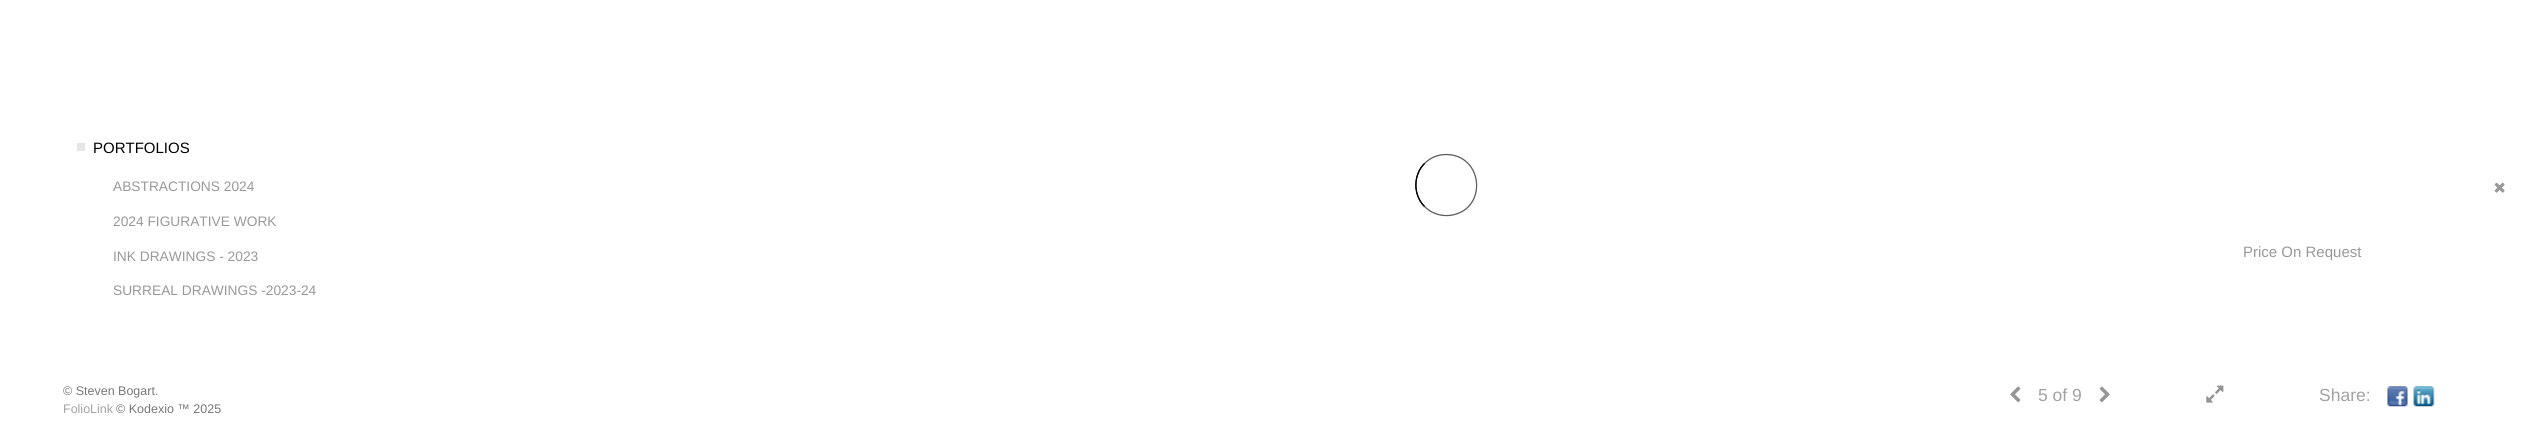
#include <cairo/cairo.h>
#include <math.h>
#include <stddef.h>

typedef struct { double x, y; const char *s; } line_t;
static cairo_t *cr;

static void rgb(unsigned color)
{
	cairo_set_source_rgb(cr, (color >> 16) / 255.0, (color >> 8 & 255) / 255.0, (color & 255) / 255.0);
}

static void image(const char *path, double x, double y, double w, double h)
{
	cairo_surface_t *image = cairo_image_surface_create_from_png(path);
	cairo_save(cr);
	cairo_set_source_surface(cr, image, x, y);
	cairo_rectangle(cr, x, y, w, h);
	cairo_fill(cr);
	cairo_restore(cr);
	cairo_surface_destroy(image);
}

int main(void) {
	cairo_surface_t *surface = cairo_image_surface_create(CAIRO_FORMAT_RGB24, 2542, 432);
	cr = cairo_create(surface);
	cairo_font_options_t *options = cairo_font_options_create();
	cairo_font_options_set_hint_metrics(options, CAIRO_HINT_METRICS_OFF);
	cairo_font_options_set_hint_style(options, CAIRO_HINT_STYLE_NONE);
	cairo_set_font_options(cr, options);
	cairo_set_miter_limit(cr, 4);
	rgb(0xffffff);
	cairo_paint(cr);
	rgb(0xe5e5e5);
	cairo_rectangle(cr, 77, 143, 8, 8);
	cairo_fill(cr);
	image("img/1.png", 2494, 182, 11, 11);
	cairo_new_path(cr);
	cairo_move_to(cr, 1424.5, 163.5);
	cairo_curve_to(cr, 1430.5, 157.5, 1438, 154.5, 1446, 154.5);
	cairo_curve_to(cr, 1483, 154.5, 1488, 208, 1452.5, 215);
	cairo_curve_to(cr, 1442.5, 217, 1432, 214, 1424.5, 206.5);
	rgb(0x999999);
	cairo_set_line_width(cr, 1.2);
	cairo_stroke(cr);
	cairo_new_path(cr);
	cairo_move_to(cr, 1424.5, 206.5);
	cairo_curve_to(cr, 1413, 195, 1413, 175, 1424.5, 163.5);
	rgb(0x000000);
	cairo_stroke(cr);
	cairo_new_path(cr);
	cairo_move_to(cr, 1424.5, 163.5);
	cairo_curve_to(cr, 1430.5, 157.5, 1438, 154.5, 1446, 154.5);
	cairo_curve_to(cr, 1483, 154.5, 1488, 208, 1452.5, 215);
	cairo_curve_to(cr, 1442.5, 217, 1432, 214, 1424.5, 206.5);
	cairo_set_source_rgba(cr, 0, 0, 0, 0.4);
	cairo_stroke(cr);
	cairo_new_path(cr);
	cairo_move_to(cr, 1424.5, 206.5);
	cairo_curve_to(cr, 1413, 195, 1413, 175, 1424.5, 163.5);
	rgb(0x000000);
	cairo_stroke(cr);
	image("img/2.png", 2010, 386, 11, 17);
	image("img/3.png", 2099, 386, 11, 17);
	image("img/4.png", 2206, 385, 18, 18);
	image("img/5.png", 2387, 386, 21, 21);
	image("img/6.png", 2413, 386, 22, 21);
	cairo_select_font_face(cr, "Liberation Sans", CAIRO_FONT_SLANT_NORMAL, CAIRO_FONT_WEIGHT_NORMAL);
	cairo_set_font_size(cr, 15);
	cairo_move_to(cr, 93, 153);
	cairo_show_text(cr, "PORTFOLIOS");
	cairo_set_font_size(cr, 13.75);
	rgb(0x989898);
	{
		static const line_t items[] = {
			{113, 191, "ABSTRACTIONS 2024"},
			{113, 226, "2024 FIGURATIVE WORK"},
			{113, 261, "INK DRAWINGS - 2023"},
		};
		for (size_t i = 0; i < sizeof items / sizeof *items; i++) {
			cairo_move_to(cr, items[i].x, items[i].y);
			cairo_show_text(cr, items[i].s);
		}
	}
	cairo_save(cr);
	cairo_rectangle(cr, 75, 63, 275, 232);
	cairo_clip(cr);
	cairo_move_to(cr, 113, 295);
	cairo_show_text(cr, "SURREAL DRAWINGS -2023-24");
	cairo_restore(cr);
	cairo_set_font_size(cr, 15);
	cairo_move_to(cr, 2243, 257);
	cairo_show_text(cr, "Price On Request");
	cairo_set_font_size(cr, 12.5);
	rgb(0x777777);
	cairo_move_to(cr, 63, 395);
	cairo_show_text(cr, "© Steven Bogart.");
	rgb(0xa2a2a2);
	cairo_move_to(cr, 63, 413);
	cairo_show_text(cr, "FolioLink");
	rgb(0x777777);
	cairo_move_to(cr, 116, 413);
	cairo_show_text(cr, "© Kodexio ™ 2025");
	cairo_set_font_size(cr, 17.5);
	rgb(0xa2a2a2);
	cairo_move_to(cr, 2038, 401);
	cairo_show_text(cr, "5 of 9");
	cairo_move_to(cr, 2319, 401);
	cairo_show_text(cr, "Share:");
	cairo_surface_write_to_png(surface, "page.png");
	cairo_font_options_destroy(options);
	cairo_destroy(cr);
	cairo_surface_destroy(surface);
	return 0;
}
